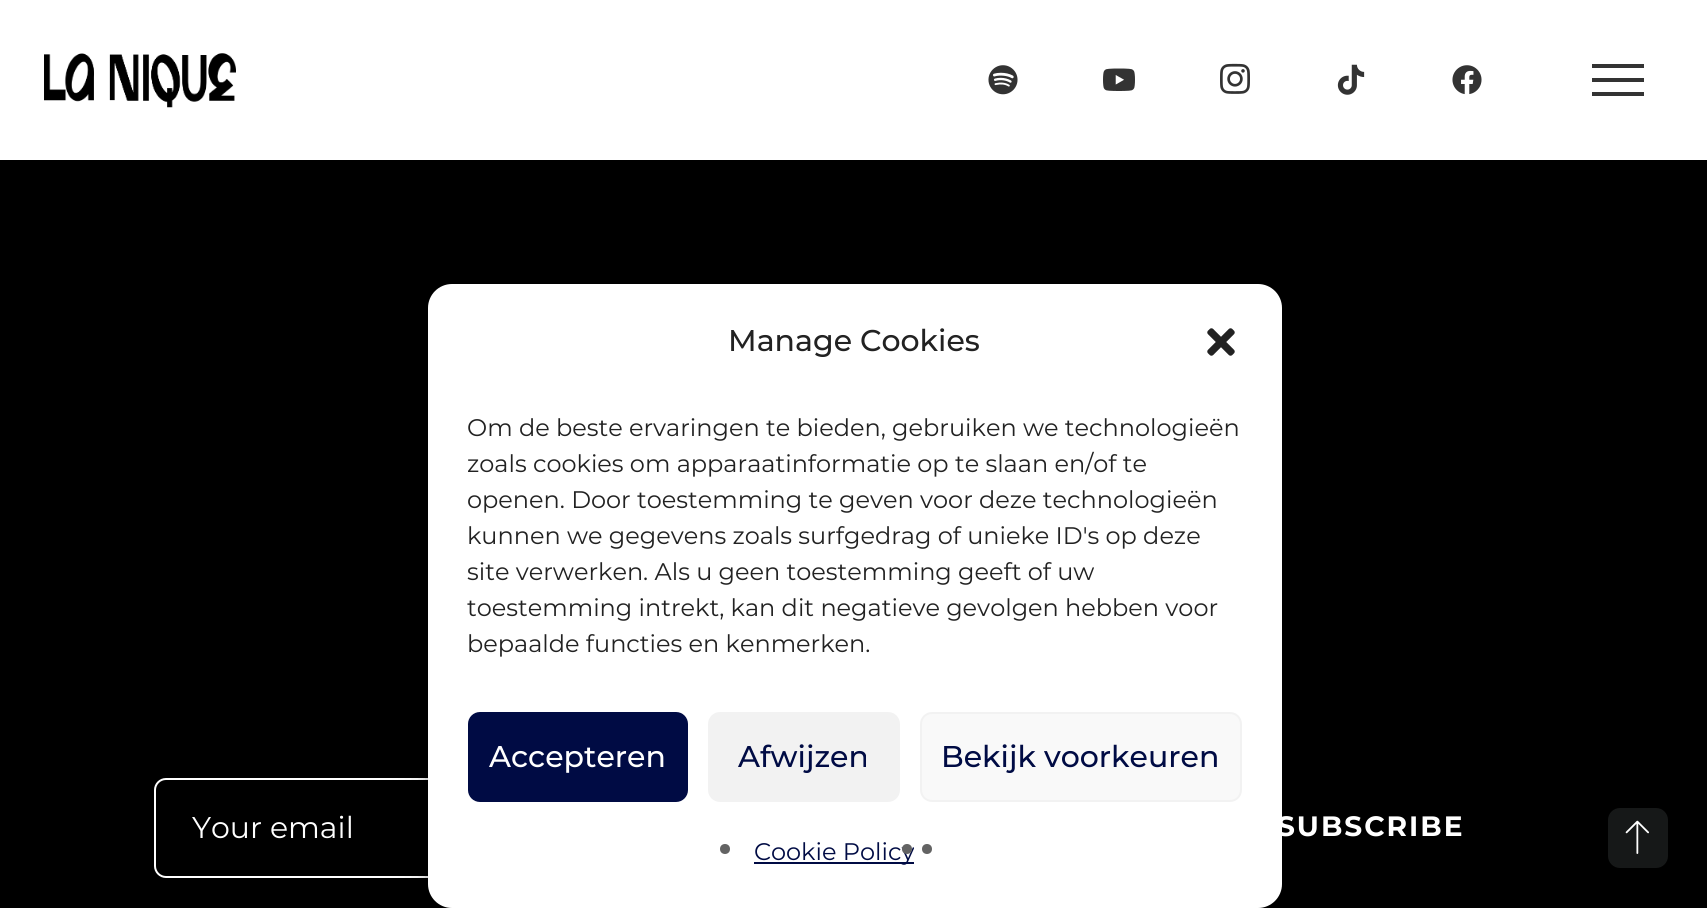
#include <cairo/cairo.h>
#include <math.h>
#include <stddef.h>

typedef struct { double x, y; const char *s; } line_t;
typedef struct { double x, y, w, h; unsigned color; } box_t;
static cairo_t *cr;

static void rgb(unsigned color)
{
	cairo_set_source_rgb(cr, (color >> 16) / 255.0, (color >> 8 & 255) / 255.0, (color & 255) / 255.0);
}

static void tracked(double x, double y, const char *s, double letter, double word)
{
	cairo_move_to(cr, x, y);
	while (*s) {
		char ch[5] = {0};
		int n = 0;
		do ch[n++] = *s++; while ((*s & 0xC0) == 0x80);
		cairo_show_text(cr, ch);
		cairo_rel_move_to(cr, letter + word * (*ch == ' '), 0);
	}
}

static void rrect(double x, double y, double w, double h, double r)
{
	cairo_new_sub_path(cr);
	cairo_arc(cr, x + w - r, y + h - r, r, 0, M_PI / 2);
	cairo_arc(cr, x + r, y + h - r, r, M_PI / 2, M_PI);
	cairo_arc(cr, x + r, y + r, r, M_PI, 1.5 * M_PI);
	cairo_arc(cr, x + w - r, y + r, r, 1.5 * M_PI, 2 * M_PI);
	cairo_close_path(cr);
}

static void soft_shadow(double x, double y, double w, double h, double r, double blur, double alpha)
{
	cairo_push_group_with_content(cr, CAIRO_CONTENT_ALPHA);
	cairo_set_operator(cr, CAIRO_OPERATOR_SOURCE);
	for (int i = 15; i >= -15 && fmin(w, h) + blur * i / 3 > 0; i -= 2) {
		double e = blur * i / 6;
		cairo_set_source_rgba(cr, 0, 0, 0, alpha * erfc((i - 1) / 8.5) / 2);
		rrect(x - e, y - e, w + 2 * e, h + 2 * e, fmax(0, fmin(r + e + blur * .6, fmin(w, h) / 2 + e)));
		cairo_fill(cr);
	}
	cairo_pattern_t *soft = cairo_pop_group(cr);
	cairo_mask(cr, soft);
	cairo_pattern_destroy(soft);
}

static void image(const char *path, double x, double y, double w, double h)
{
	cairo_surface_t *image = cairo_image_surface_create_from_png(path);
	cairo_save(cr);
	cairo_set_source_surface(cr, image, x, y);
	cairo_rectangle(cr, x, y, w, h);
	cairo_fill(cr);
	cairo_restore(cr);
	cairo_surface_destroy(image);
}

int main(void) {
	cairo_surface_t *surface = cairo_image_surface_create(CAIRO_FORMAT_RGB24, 1707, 908);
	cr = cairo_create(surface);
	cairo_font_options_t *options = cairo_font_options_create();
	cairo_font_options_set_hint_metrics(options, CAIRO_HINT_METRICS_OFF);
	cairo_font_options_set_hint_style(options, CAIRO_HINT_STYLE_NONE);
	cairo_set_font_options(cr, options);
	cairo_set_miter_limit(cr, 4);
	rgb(0x000000);
	cairo_paint(cr);
	rrect(155, 779, 1020, 98, 11);
	rgb(0xffffff);
	cairo_stroke(cr);
	rgb(0x000000);
	soft_shadow(428, 296, 854, 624, 24, 6, 0.23);
	soft_shadow(428, 304, 854, 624, 24, 20, 0.19);
	rgb(0xffffff);
	rrect(428, 284, 854, 624, 24);
	cairo_fill(cr);
	image("img/1.png", 1207, 328, 28, 28);
	rgb(0x000b44);
	rrect(469, 713, 218, 88, 11);
	cairo_fill_preserve(cr);
	cairo_stroke(cr);
	rgb(0xf2f2f2);
	rrect(709, 713, 190, 88, 11);
	cairo_fill_preserve(cr);
	cairo_stroke(cr);
	rgb(0xf9f9f9);
	rrect(921, 713, 320, 88, 11);
	cairo_fill_preserve(cr);
	rgb(0xf2f2f2);
	cairo_stroke(cr);
	rgb(0x636363);
	cairo_arc(cr, 725, 849, 5, 0, 2 * M_PI);
	cairo_fill(cr);
	rgb(0x000b44);
	cairo_rectangle(cr, 754, 862, 160, 2);
	cairo_fill(cr);
	rgb(0x636363);
	cairo_arc(cr, 927, 849, 5, 0, 2 * M_PI);
	cairo_fill(cr);
	rgb(0x161818);
	rrect(1608, 808, 60, 60, 12);
	cairo_fill(cr);
	image("img/2.png", 1625, 820, 24, 34);
	rgb(0xffffff);
	cairo_rectangle(cr, 0, 0, 1707, 160);
	cairo_fill(cr);
	image("img/3.png", 44, 53, 192, 55);
	image("img/4.png", 988, 65, 30, 30);
	image("img/5.png", 1103, 68, 32, 23);
	image("img/6.png", 1220, 63, 30, 31);
	image("img/7.png", 1337, 64, 28, 31);
	image("img/8.png", 1452, 65, 30, 30);
	{
		static const box_t items[] = {
			{1592, 64, 52, 4, 0x333333},
			{1592, 78, 52, 4, 0x333333},
			{1592, 92, 52, 4, 0x333333},
		};
		for (size_t i = 0; i < sizeof items / sizeof *items; i++) {
			rgb(items[i].color);
			cairo_rectangle(cr, items[i].x, items[i].y, items[i].w, items[i].h);
			cairo_fill(cr);
		}
	}
	cairo_select_font_face(cr, "Montserrat Medium", CAIRO_FONT_SLANT_NORMAL, CAIRO_FONT_WEIGHT_NORMAL);
	cairo_set_font_size(cr, 30);
	rgb(0x222222);
	cairo_move_to(cr, 728, 351);
	cairo_show_text(cr, "Manage Cookies");
	cairo_select_font_face(cr, "Montserrat", CAIRO_FONT_SLANT_NORMAL, CAIRO_FONT_WEIGHT_NORMAL);
	cairo_set_font_size(cr, 24);
	{
		static const line_t items[] = {
			{467, 436, "Om de beste ervaringen te bieden, gebruiken we technologieën"},
			{467, 472, "zoals cookies om apparaatinformatie op te slaan en/of te"},
			{467, 508, "openen. Door toestemming te geven voor deze technologieën"},
			{467, 544, "kunnen we gegevens zoals surfgedrag of unieke ID's op deze"},
			{467, 580, "site verwerken. Als u geen toestemming geeft of uw"},
			{467, 616, "toestemming intrekt, kan dit negatieve gevolgen hebben voor"},
			{467, 652, "bepaalde functies en kenmerken."},
		};
		for (size_t i = 0; i < sizeof items / sizeof *items; i++) {
			cairo_move_to(cr, items[i].x, items[i].y);
			cairo_show_text(cr, items[i].s);
		}
	}
	cairo_select_font_face(cr, "Montserrat Medium", CAIRO_FONT_SLANT_NORMAL, CAIRO_FONT_WEIGHT_NORMAL);
	cairo_set_font_size(cr, 30);
	rgb(0xffffff);
	cairo_move_to(cr, 489, 767);
	cairo_show_text(cr, "Accepteren");
	rgb(0x000b44);
	cairo_move_to(cr, 738, 767);
	cairo_show_text(cr, "Afwijzen");
	cairo_move_to(cr, 941, 767);
	cairo_show_text(cr, "Bekijk voorkeuren");
	cairo_select_font_face(cr, "Montserrat", CAIRO_FONT_SLANT_NORMAL, CAIRO_FONT_WEIGHT_NORMAL);
	cairo_set_font_size(cr, 24);
	cairo_move_to(cr, 754, 860);
	cairo_show_text(cr, "Cookie Policy");
	rgb(0x636363);
	cairo_new_path(cr);
	cairo_arc(cr, 907, 849, 5, 0, 2 * M_PI);
	cairo_fill(cr);
	cairo_set_font_size(cr, 30);
	rgb(0xffffff);
	cairo_move_to(cr, 192, 838);
	cairo_show_text(cr, "Your email");
	cairo_select_font_face(cr, "Montserrat", CAIRO_FONT_SLANT_NORMAL, CAIRO_FONT_WEIGHT_BOLD);
	cairo_set_font_size(cr, 28);
	tracked(1277, 836, "SUBSCRIBE", 2, 0);
	cairo_surface_write_to_png(surface, "page.png");
	cairo_font_options_destroy(options);
	cairo_destroy(cr);
	cairo_surface_destroy(surface);
	return 0;
}
